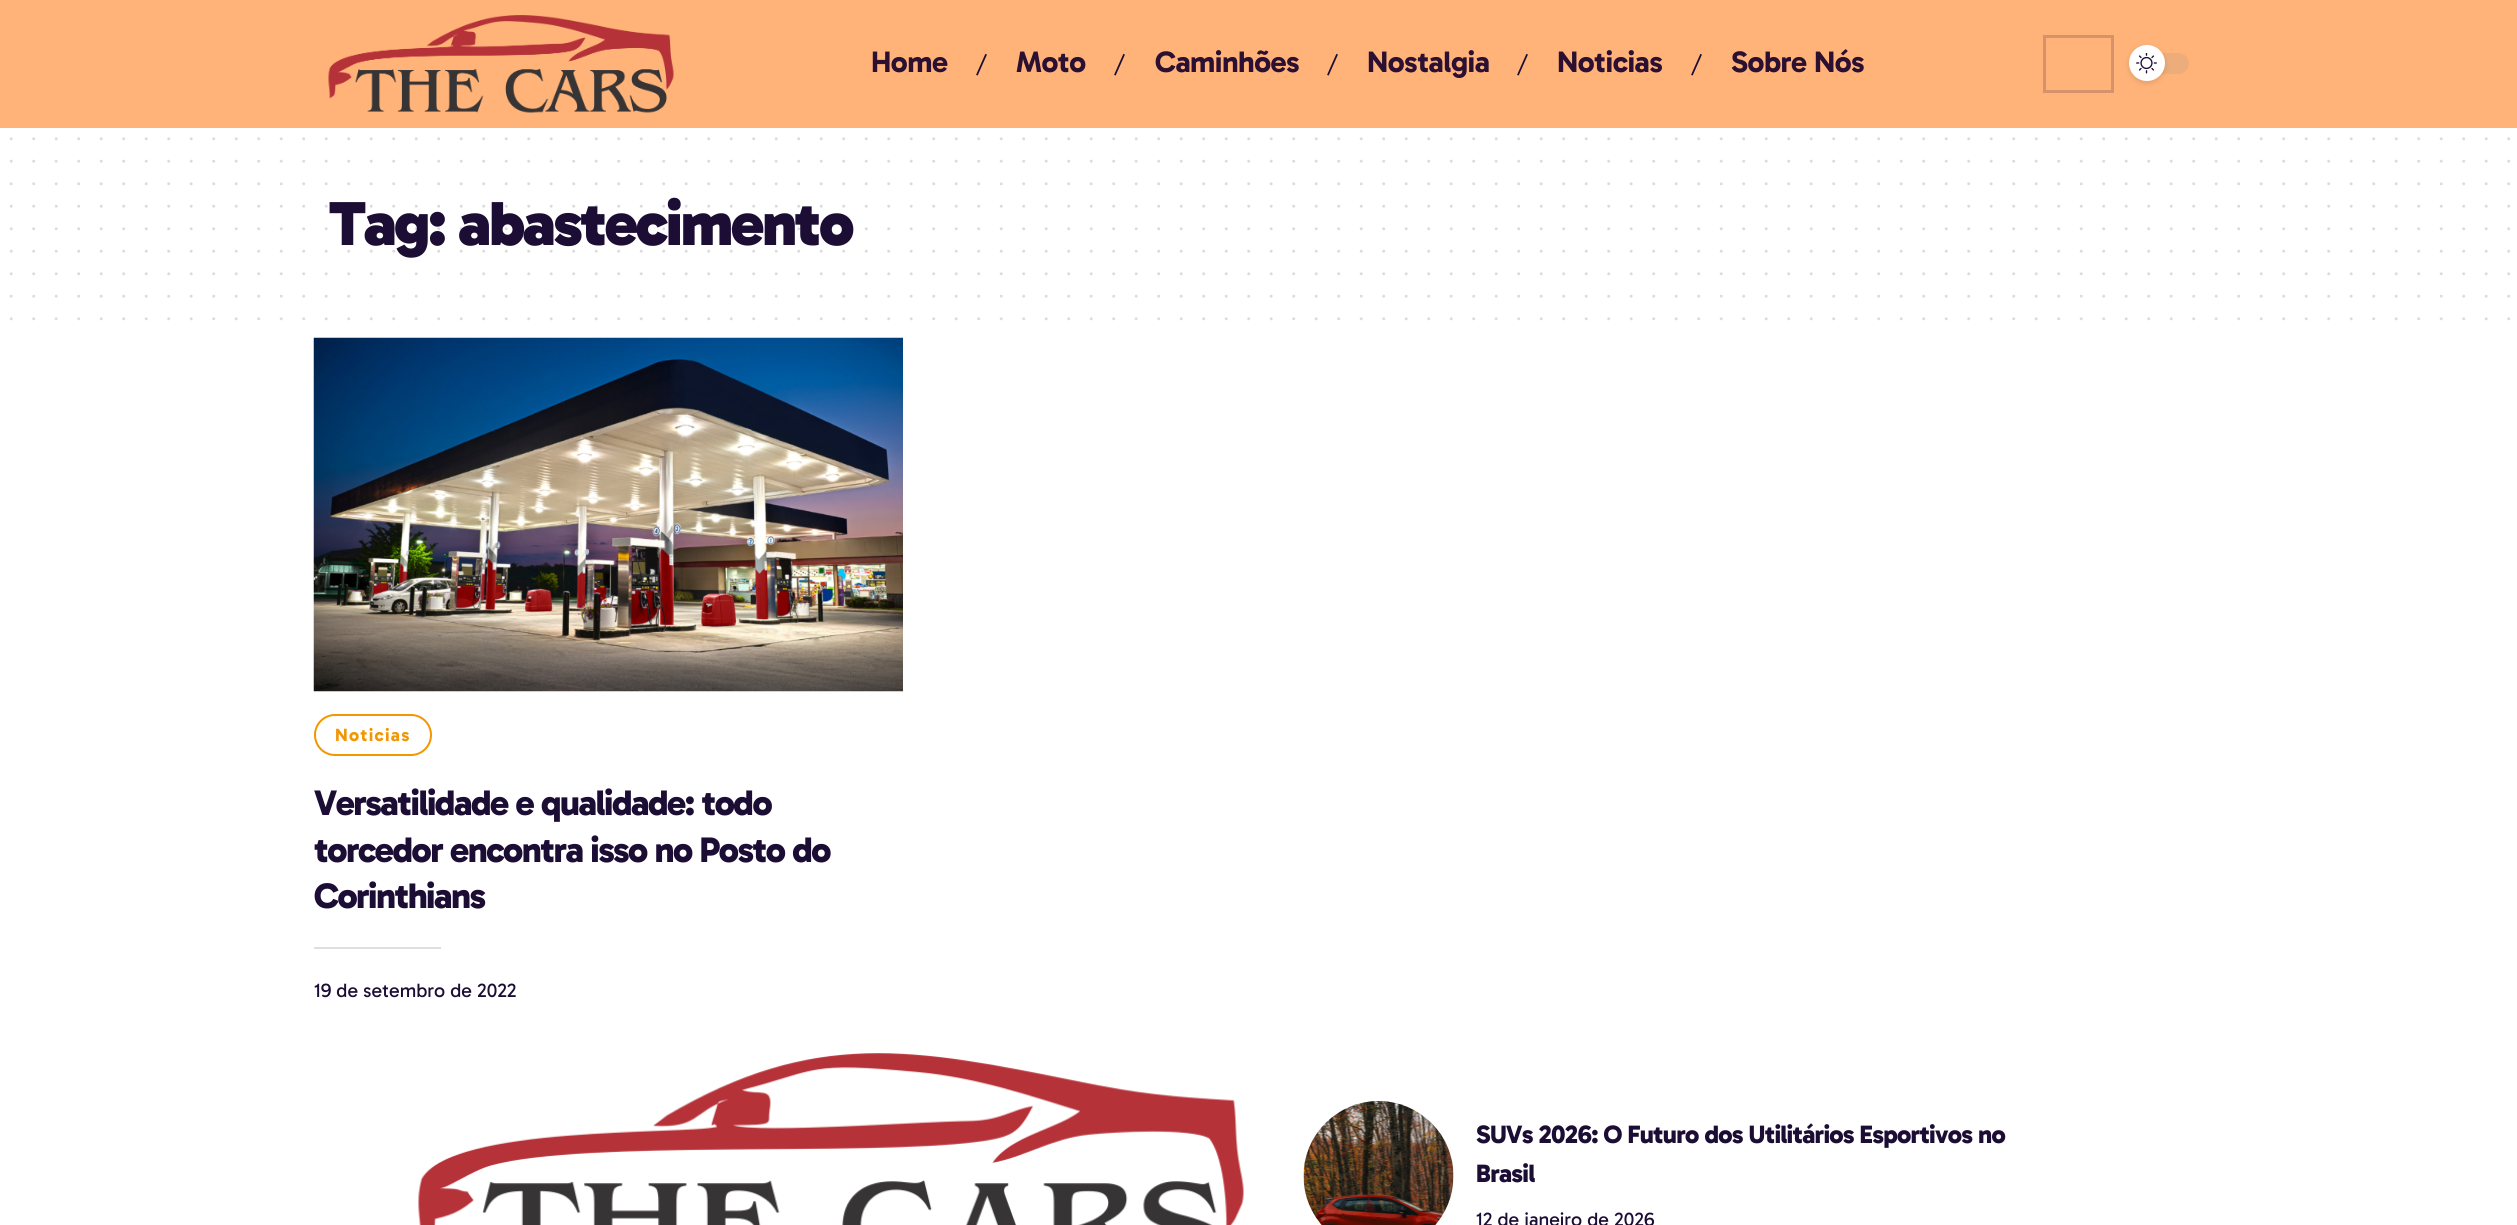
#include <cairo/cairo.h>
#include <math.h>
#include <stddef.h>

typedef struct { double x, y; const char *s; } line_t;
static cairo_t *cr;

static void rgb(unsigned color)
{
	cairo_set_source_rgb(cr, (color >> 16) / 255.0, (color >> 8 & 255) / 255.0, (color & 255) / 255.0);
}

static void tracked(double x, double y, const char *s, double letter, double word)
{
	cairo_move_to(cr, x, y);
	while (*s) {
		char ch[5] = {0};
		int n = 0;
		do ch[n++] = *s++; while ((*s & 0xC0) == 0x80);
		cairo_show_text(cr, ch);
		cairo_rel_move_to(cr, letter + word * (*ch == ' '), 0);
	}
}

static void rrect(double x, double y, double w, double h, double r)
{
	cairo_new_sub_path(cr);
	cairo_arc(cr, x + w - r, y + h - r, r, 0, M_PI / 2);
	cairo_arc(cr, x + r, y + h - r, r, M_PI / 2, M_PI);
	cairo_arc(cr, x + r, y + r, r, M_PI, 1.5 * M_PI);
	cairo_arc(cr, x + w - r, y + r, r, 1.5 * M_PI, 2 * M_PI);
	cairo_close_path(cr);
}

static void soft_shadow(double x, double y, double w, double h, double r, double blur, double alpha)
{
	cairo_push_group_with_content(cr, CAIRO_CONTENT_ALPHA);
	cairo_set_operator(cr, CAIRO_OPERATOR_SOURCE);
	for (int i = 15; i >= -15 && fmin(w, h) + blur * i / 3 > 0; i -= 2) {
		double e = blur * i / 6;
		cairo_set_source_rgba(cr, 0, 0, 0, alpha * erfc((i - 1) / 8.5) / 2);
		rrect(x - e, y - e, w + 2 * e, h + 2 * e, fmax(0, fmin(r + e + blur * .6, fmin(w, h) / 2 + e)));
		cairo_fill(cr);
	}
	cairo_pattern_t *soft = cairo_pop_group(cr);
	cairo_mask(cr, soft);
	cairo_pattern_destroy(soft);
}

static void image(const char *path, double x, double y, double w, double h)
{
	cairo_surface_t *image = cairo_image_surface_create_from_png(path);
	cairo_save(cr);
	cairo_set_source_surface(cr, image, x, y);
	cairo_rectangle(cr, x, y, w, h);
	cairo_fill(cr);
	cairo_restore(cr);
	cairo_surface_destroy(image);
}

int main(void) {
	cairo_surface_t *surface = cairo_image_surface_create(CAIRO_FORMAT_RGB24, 2517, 1225);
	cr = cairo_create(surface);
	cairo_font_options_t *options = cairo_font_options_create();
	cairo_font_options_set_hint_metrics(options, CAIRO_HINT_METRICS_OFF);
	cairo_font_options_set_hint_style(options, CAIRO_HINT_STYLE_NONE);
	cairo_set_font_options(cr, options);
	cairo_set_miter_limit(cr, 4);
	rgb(0xffffff);
	cairo_paint(cr);
	rgb(0xffb379);
	cairo_rectangle(cr, 0, 0, 2517, 128);
	cairo_fill(cr);
	image("img/1.png", 328, 15, 346, 98);
	cairo_rectangle(cr, 2044.5, 36.5, 68, 55);
	rgb(0xd5926b);
	cairo_set_line_width(cr, 3);
	cairo_stroke(cr);
	rgb(0xedad7b);
	rrect(2129, 53, 60, 21, 10.5);
	cairo_fill(cr);
	rgb(0x000000);
	soft_shadow(2129, 47, 36, 36, 18, 3, 0.12);
	rgb(0xffffff);
	cairo_arc(cr, 2147, 63, 18, 0, 2 * M_PI);
	cairo_fill(cr);
	image("img/2.png", 2136, 53, 21, 21);
	cairo_new_path(cr);
	cairo_move_to(cr, 11.2, 138.8);
	cairo_line_to(cr, 2509.1, 138.8);
	rgb(0xdddbe1);
	cairo_set_line_cap(cr, CAIRO_LINE_CAP_ROUND);
	cairo_set_dash(cr, (double[]){0, 22.5}, 2, 0);
	cairo_stroke(cr);
	cairo_new_path(cr);
	cairo_move_to(cr, 11.2, 161.2);
	cairo_line_to(cr, 2509.1, 161.2);
	cairo_stroke(cr);
	cairo_new_path(cr);
	cairo_move_to(cr, 11.2, 183.8);
	cairo_line_to(cr, 2509.1, 183.8);
	cairo_stroke(cr);
	cairo_new_path(cr);
	cairo_move_to(cr, 11.2, 273.8);
	cairo_line_to(cr, 2509.1, 273.8);
	cairo_stroke(cr);
	cairo_new_path(cr);
	cairo_move_to(cr, 11.2, 296.2);
	cairo_line_to(cr, 2509.1, 296.2);
	cairo_stroke(cr);
	cairo_new_path(cr);
	cairo_move_to(cr, 11.2, 318.8);
	cairo_line_to(cr, 2509.1, 318.8);
	cairo_stroke(cr);
	image("img/3.png", 313, 337, 590, 355);
	rrect(315, 715, 116, 40, 20);
	rgb(0xf29601);
	cairo_set_line_width(cr, 2);
	cairo_set_line_cap(cr, CAIRO_LINE_CAP_BUTT);
	cairo_set_dash(cr, NULL, 0, 0);
	cairo_stroke(cr);
	rgb(0xdfdfdf);
	cairo_rectangle(cr, 314, 947, 127, 2);
	cairo_fill(cr);
	image("img/4.png", 418, 1053, 826, 172);
	image("img/5.png", 1303, 1101, 151, 124);
	cairo_select_font_face(cr, "Gabarito", CAIRO_FONT_SLANT_NORMAL, CAIRO_FONT_WEIGHT_BOLD);
	cairo_set_font_size(cr, 30);
	rgb(0x2b1032);
	tracked(871, 72, "Home", -0.5, 0);
	cairo_select_font_face(cr, "PT Sans", CAIRO_FONT_SLANT_NORMAL, CAIRO_FONT_WEIGHT_NORMAL);
	cairo_set_font_size(cr, 25.5);
	rgb(0x1c0d35);
	cairo_move_to(cr, 977, 72);
	cairo_show_text(cr, "/");
	cairo_select_font_face(cr, "Gabarito", CAIRO_FONT_SLANT_NORMAL, CAIRO_FONT_WEIGHT_BOLD);
	cairo_set_font_size(cr, 30);
	rgb(0x2b1032);
	tracked(1016, 72, "Moto", -0.5, 0);
	cairo_select_font_face(cr, "PT Sans", CAIRO_FONT_SLANT_NORMAL, CAIRO_FONT_WEIGHT_NORMAL);
	cairo_set_font_size(cr, 25.5);
	rgb(0x1c0d35);
	cairo_move_to(cr, 1115, 72);
	cairo_show_text(cr, "/");
	cairo_select_font_face(cr, "Gabarito", CAIRO_FONT_SLANT_NORMAL, CAIRO_FONT_WEIGHT_BOLD);
	cairo_set_font_size(cr, 30);
	rgb(0x2b1032);
	tracked(1155, 72, "Caminhões", -0.5, 0);
	cairo_select_font_face(cr, "PT Sans", CAIRO_FONT_SLANT_NORMAL, CAIRO_FONT_WEIGHT_NORMAL);
	cairo_set_font_size(cr, 25.5);
	rgb(0x1c0d35);
	cairo_move_to(cr, 1328, 72);
	cairo_show_text(cr, "/");
	cairo_select_font_face(cr, "Gabarito", CAIRO_FONT_SLANT_NORMAL, CAIRO_FONT_WEIGHT_BOLD);
	cairo_set_font_size(cr, 30);
	rgb(0x2b1032);
	tracked(1367, 72, "Nostalgia", -0.5, 0);
	cairo_select_font_face(cr, "PT Sans", CAIRO_FONT_SLANT_NORMAL, CAIRO_FONT_WEIGHT_NORMAL);
	cairo_set_font_size(cr, 25.5);
	rgb(0x1c0d35);
	cairo_move_to(cr, 1518, 72);
	cairo_show_text(cr, "/");
	cairo_select_font_face(cr, "Gabarito", CAIRO_FONT_SLANT_NORMAL, CAIRO_FONT_WEIGHT_BOLD);
	cairo_set_font_size(cr, 30);
	rgb(0x2b1032);
	tracked(1557, 72, "Noticias", -0.5, 0);
	cairo_select_font_face(cr, "PT Sans", CAIRO_FONT_SLANT_NORMAL, CAIRO_FONT_WEIGHT_NORMAL);
	cairo_set_font_size(cr, 25.5);
	rgb(0x1c0d35);
	cairo_move_to(cr, 1692, 72);
	cairo_show_text(cr, "/");
	cairo_select_font_face(cr, "Gabarito", CAIRO_FONT_SLANT_NORMAL, CAIRO_FONT_WEIGHT_BOLD);
	cairo_set_font_size(cr, 30);
	rgb(0x2b1032);
	tracked(1731, 72, "Sobre Nós", -0.5, 0);
	cairo_select_font_face(cr, "Gabarito Black", CAIRO_FONT_SLANT_NORMAL, CAIRO_FONT_WEIGHT_NORMAL);
	cairo_set_font_size(cr, 63);
	rgb(0x1c0d35);
	tracked(329, 245, "Tag: abastecimento", -2.25, 0);
	cairo_new_path(cr);
	cairo_move_to(cr, 11.2, 251.2);
	cairo_line_to(cr, 2509.1, 251.2);
	cairo_set_source_rgba(cr, 0.11, 0.051, 0.208, 0.15);
	cairo_set_line_width(cr, 3);
	cairo_set_line_cap(cr, CAIRO_LINE_CAP_ROUND);
	cairo_set_dash(cr, (double[]){0, 22.5}, 2, 0);
	cairo_stroke(cr);
	cairo_new_path(cr);
	cairo_move_to(cr, 11.2, 228.8);
	cairo_line_to(cr, 2509.1, 228.8);
	cairo_stroke(cr);
	cairo_new_path(cr);
	cairo_move_to(cr, 11.2, 206.2);
	cairo_line_to(cr, 2509.1, 206.2);
	cairo_stroke(cr);
	cairo_select_font_face(cr, "Gabarito", CAIRO_FONT_SLANT_NORMAL, CAIRO_FONT_WEIGHT_BOLD);
	cairo_set_font_size(cr, 18);
	rgb(0xf29601);
	tracked(335, 741, "Noticias", 1.25, 0);
	cairo_select_font_face(cr, "Gabarito ExtraBold", CAIRO_FONT_SLANT_NORMAL, CAIRO_FONT_WEIGHT_NORMAL);
	cairo_set_font_size(cr, 36);
	rgb(0x1c0d35);
	{
		static const line_t items[] = {
			{314, 815, "Versatilidade e qualidade: todo"},
			{314, 862, "torcedor encontra isso no Posto do"},
			{314, 908, "Corinthians"},
		};
		for (size_t i = 0; i < sizeof items / sizeof *items; i++) {
			tracked(items[i].x, items[i].y, items[i].s, -1.5, 0);
		}
	}
	cairo_select_font_face(cr, "Gabarito", CAIRO_FONT_SLANT_NORMAL, CAIRO_FONT_WEIGHT_NORMAL);
	cairo_set_font_size(cr, 19.5);
	cairo_move_to(cr, 314, 997);
	cairo_show_text(cr, "19 de setembro de 2022");
	cairo_select_font_face(cr, "Gabarito ExtraBold", CAIRO_FONT_SLANT_NORMAL, CAIRO_FONT_WEIGHT_NORMAL);
	cairo_set_font_size(cr, 25.5);
	tracked(1476, 1143, "SUVs 2026: O Futuro dos Utilitários Esportivos no", -0.75, 0);
	tracked(1476, 1182, "Brasil", -0.75, 0);
	cairo_select_font_face(cr, "Gabarito", CAIRO_FONT_SLANT_NORMAL, CAIRO_FONT_WEIGHT_NORMAL);
	cairo_set_font_size(cr, 19.5);
	cairo_move_to(cr, 1476, 1226);
	cairo_show_text(cr, "12 de janeiro de 2026");
	cairo_surface_write_to_png(surface, "page.png");
	cairo_font_options_destroy(options);
	cairo_destroy(cr);
	cairo_surface_destroy(surface);
	return 0;
}
